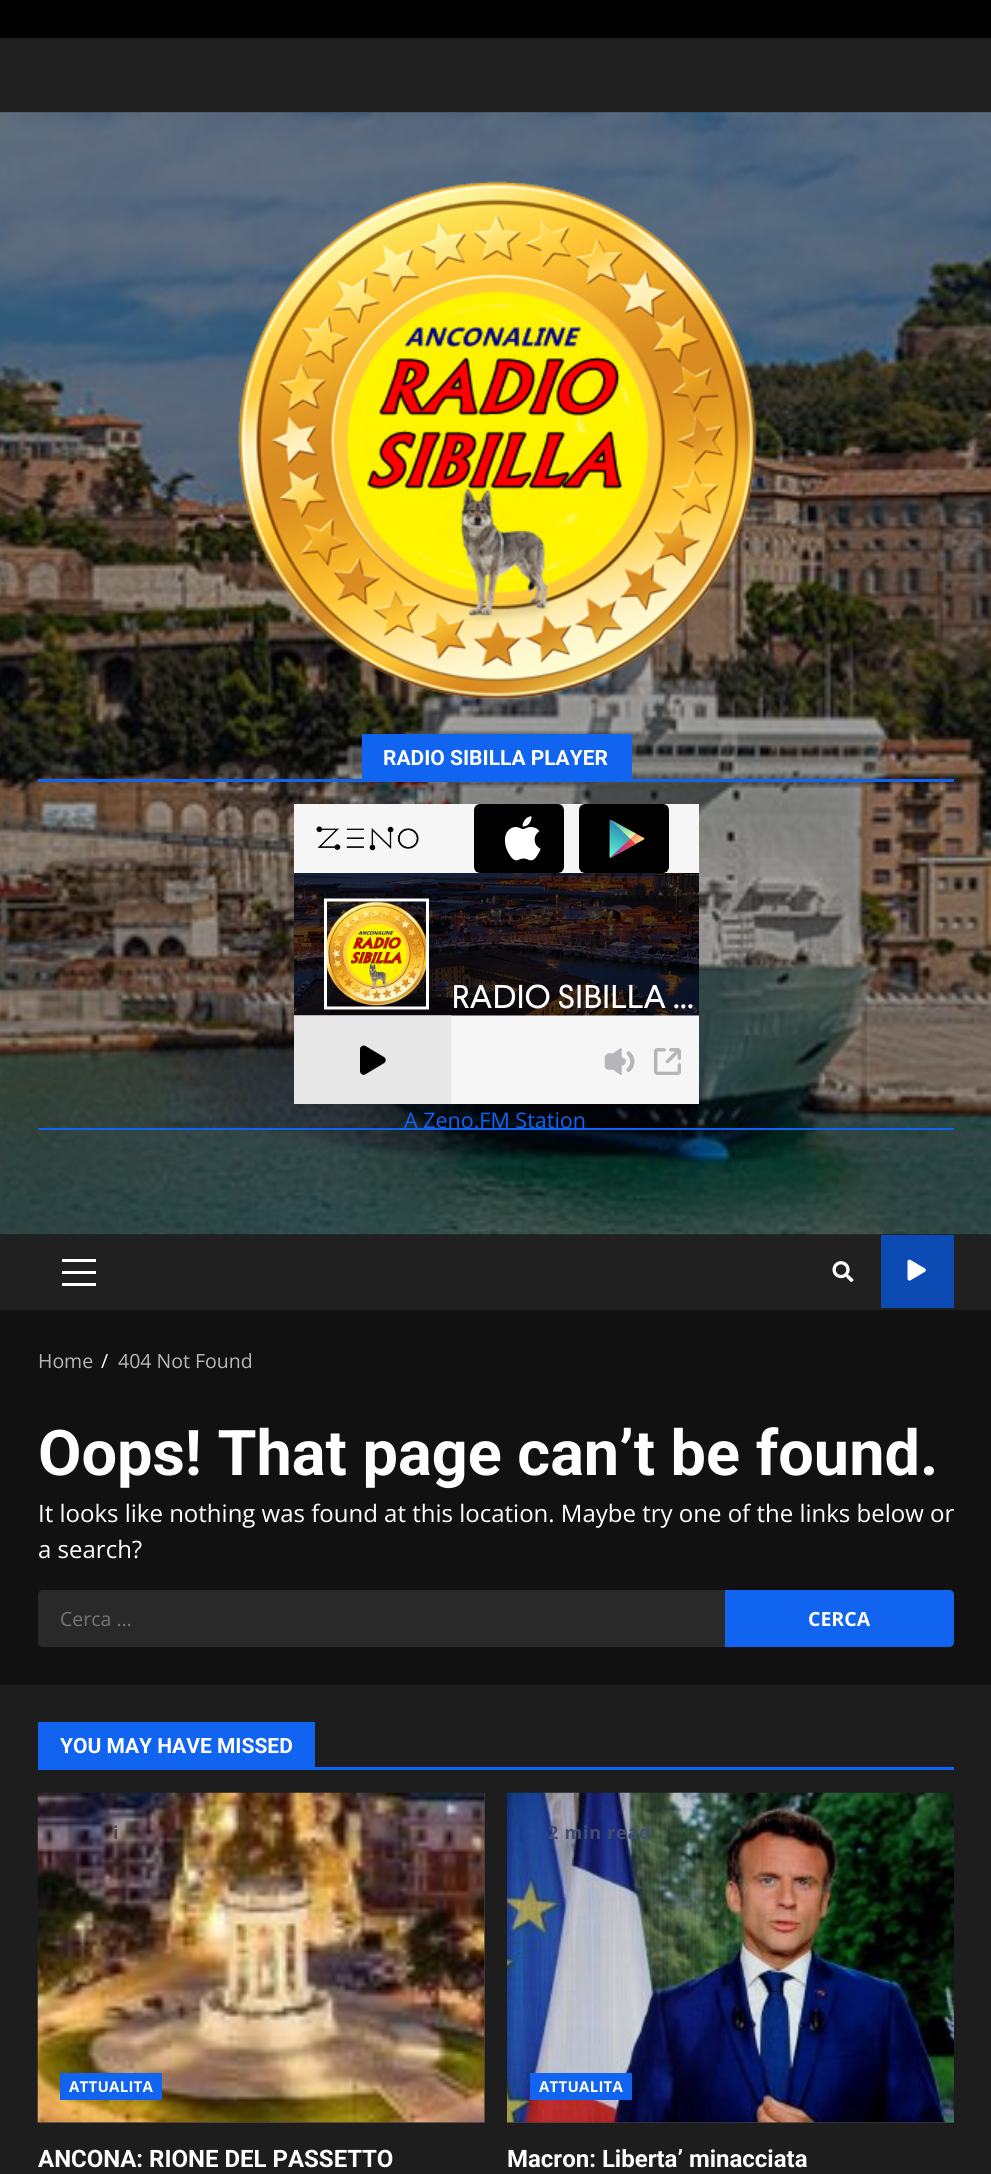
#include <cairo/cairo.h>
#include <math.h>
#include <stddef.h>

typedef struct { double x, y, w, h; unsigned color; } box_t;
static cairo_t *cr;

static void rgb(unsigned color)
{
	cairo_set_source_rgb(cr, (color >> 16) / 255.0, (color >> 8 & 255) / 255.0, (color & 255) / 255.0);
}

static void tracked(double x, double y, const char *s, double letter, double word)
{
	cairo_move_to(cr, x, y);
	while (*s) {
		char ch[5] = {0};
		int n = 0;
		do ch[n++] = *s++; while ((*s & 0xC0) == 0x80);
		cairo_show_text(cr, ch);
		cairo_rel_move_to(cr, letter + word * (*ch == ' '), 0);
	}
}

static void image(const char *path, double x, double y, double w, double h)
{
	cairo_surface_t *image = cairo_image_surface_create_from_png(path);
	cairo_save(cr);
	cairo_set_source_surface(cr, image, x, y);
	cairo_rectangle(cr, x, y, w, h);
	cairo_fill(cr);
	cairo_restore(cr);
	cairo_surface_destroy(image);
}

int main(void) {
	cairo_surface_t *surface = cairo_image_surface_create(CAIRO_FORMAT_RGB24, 991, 2174);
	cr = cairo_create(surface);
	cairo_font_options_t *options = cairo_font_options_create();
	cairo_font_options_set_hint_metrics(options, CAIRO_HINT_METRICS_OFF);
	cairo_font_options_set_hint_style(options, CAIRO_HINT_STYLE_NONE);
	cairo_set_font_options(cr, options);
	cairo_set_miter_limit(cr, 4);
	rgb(0x000000);
	cairo_paint(cr);
	{
		static const box_t items[] = {
			{0, 1310, 991, 375, 0x111111},
			{0, 1234, 991, 1, 0x0b0b0b},
			{0, 38, 991, 75, 0x202020},
		};
		for (size_t i = 0; i < sizeof items / sizeof *items; i++) {
			rgb(items[i].color);
			cairo_rectangle(cr, items[i].x, items[i].y, items[i].w, items[i].h);
			cairo_fill(cr);
		}
	}
	image("img/1.png", 0, 112, 991, 1123);
	image("img/2.png", 238, 181, 519, 519);
	rgb(0x1164f0);
	cairo_rectangle(cr, 38, 779, 916, 3);
	cairo_fill(cr);
	cairo_rectangle(cr, 362, 734, 270, 45);
	cairo_fill(cr);
	image("img/3.png", 294, 804, 405, 300);
	{
		static const box_t items[] = {
			{38, 1128, 916, 2, 0x1164f0},
			{0, 1235, 991, 75, 0x202020},
			{62, 1271, 34, 3, 0xffffff},
			{62, 1259, 34, 3, 0xffffff},
			{62, 1283, 34, 3, 0xffffff},
		};
		for (size_t i = 0; i < sizeof items / sizeof *items; i++) {
			rgb(items[i].color);
			cairo_rectangle(cr, items[i].x, items[i].y, items[i].w, items[i].h);
			cairo_fill(cr);
		}
	}
	image("img/4.png", 832, 1261, 22, 22);
	rgb(0x0d4bb4);
	cairo_rectangle(cr, 881, 1235, 73, 73);
	cairo_fill(cr);
	image("img/5.png", 907, 1259, 19, 22);
	rgb(0x292929);
	cairo_new_path(cr);
	cairo_move_to(cr, 43, 1590);
	cairo_line_to(cr, 725, 1590);
	cairo_line_to(cr, 725, 1647);
	cairo_line_to(cr, 43, 1647);
	cairo_curve_to(cr, 40, 1647, 38, 1645, 38, 1642);
	cairo_line_to(cr, 38, 1595);
	cairo_curve_to(cr, 38, 1592, 40, 1590, 43, 1590);
	cairo_close_path(cr);
	cairo_fill(cr);
	rgb(0x1164f0);
	cairo_new_path(cr);
	cairo_move_to(cr, 725, 1590);
	cairo_line_to(cr, 949, 1590);
	cairo_curve_to(cr, 952, 1590, 954, 1592, 954, 1595);
	cairo_line_to(cr, 954, 1642);
	cairo_curve_to(cr, 954, 1645, 952, 1647, 949, 1647);
	cairo_line_to(cr, 725, 1647);
	cairo_close_path(cr);
	cairo_fill(cr);
	{
		static const box_t items[] = {
			{0, 1685, 991, 489, 0x1d1d1d},
			{38, 1767, 916, 3, 0x1164f0},
			{38, 1722, 277, 45, 0x1164f0},
			{38, 1793, 447, 330, 0x424242},
		};
		for (size_t i = 0; i < sizeof items / sizeof *items; i++) {
			rgb(items[i].color);
			cairo_rectangle(cr, items[i].x, items[i].y, items[i].w, items[i].h);
			cairo_fill(cr);
		}
	}
	image("img/6.png", 37, 1792, 448, 331);
	rgb(0x1164f0);
	cairo_rectangle(cr, 60, 2073, 102, 27);
	cairo_fill(cr);
	rgb(0x424242);
	cairo_rectangle(cr, 507, 2122, 447, 1);
	cairo_fill(cr);
	image("img/7.png", 507, 1792, 447, 331);
	rgb(0x1164f0);
	cairo_rectangle(cr, 530, 2073, 102, 27);
	cairo_fill(cr);
	cairo_select_font_face(cr, "Roboto", CAIRO_FONT_SLANT_NORMAL, CAIRO_FONT_WEIGHT_BOLD);
	cairo_set_font_size(cr, 21);
	rgb(0xffffff);
	cairo_move_to(cr, 383, 765);
	cairo_show_text(cr, "RADIO SIBILLA PLAYER");
	cairo_select_font_face(cr, "Open Sans", CAIRO_FONT_SLANT_NORMAL, CAIRO_FONT_WEIGHT_NORMAL);
	cairo_set_font_size(cr, 21.5);
	rgb(0x1164f0);
	cairo_move_to(cr, 404, 1128);
	cairo_show_text(cr, "A Zeno.FM Station");
	cairo_set_font_size(cr, 19.5);
	rgb(0xb8b8b8);
	cairo_move_to(cr, 38, 1368);
	cairo_show_text(cr, "Home");
	rgb(0xffffff);
	cairo_move_to(cr, 101, 1368);
	cairo_show_text(cr, "/");
	rgb(0xb8b8b8);
	cairo_move_to(cr, 118, 1368);
	cairo_show_text(cr, "404 Not Found");
	cairo_select_font_face(cr, "Roboto", CAIRO_FONT_SLANT_NORMAL, CAIRO_FONT_WEIGHT_BOLD);
	cairo_set_font_size(cr, 63);
	rgb(0xffffff);
	cairo_move_to(cr, 38, 1475);
	cairo_show_text(cr, "Oops! That page can’t be found.");
	cairo_select_font_face(cr, "Open Sans", CAIRO_FONT_SLANT_NORMAL, CAIRO_FONT_WEIGHT_NORMAL);
	cairo_set_font_size(cr, 24);
	cairo_move_to(cr, 38, 1522);
	cairo_show_text(cr, "It looks like nothing was found at this location. Maybe try one of the links below or");
	cairo_move_to(cr, 38, 1558);
	cairo_show_text(cr, "a search?");
	cairo_set_font_size(cr, 19.5);
	rgb(0x757575);
	cairo_move_to(cr, 60, 1626);
	cairo_show_text(cr, "Cerca …");
	cairo_select_font_face(cr, "Open Sans", CAIRO_FONT_SLANT_NORMAL, CAIRO_FONT_WEIGHT_BOLD);
	rgb(0xffffff);
	cairo_move_to(cr, 808, 1626);
	cairo_show_text(cr, "CERCA");
	cairo_select_font_face(cr, "Roboto", CAIRO_FONT_SLANT_NORMAL, CAIRO_FONT_WEIGHT_BOLD);
	cairo_set_font_size(cr, 21);
	cairo_move_to(cr, 60, 1753);
	cairo_show_text(cr, "YOU MAY HAVE MISSED");
	cairo_select_font_face(cr, "Open Sans", CAIRO_FONT_SLANT_NORMAL, CAIRO_FONT_WEIGHT_BOLD);
	cairo_set_font_size(cr, 18);
	rgb(0x55444a);
	tracked(113, 1839, "i", 0.75, 0);
	cairo_set_font_size(cr, 15);
	rgb(0xffffff);
	tracked(69, 2092, "ATTUALITA", 0.25, 0);
	cairo_select_font_face(cr, "Roboto", CAIRO_FONT_SLANT_NORMAL, CAIRO_FONT_WEIGHT_BOLD);
	cairo_set_font_size(cr, 24);
	cairo_move_to(cr, 38, 2167);
	cairo_show_text(cr, "ANCONA: RIONE DEL PASSETTO");
	cairo_select_font_face(cr, "Open Sans", CAIRO_FONT_SLANT_NORMAL, CAIRO_FONT_WEIGHT_BOLD);
	cairo_set_font_size(cr, 18);
	rgb(0x414e71);
	tracked(548, 1839, "2 min read", 0.75, 0);
	cairo_set_font_size(cr, 15);
	rgb(0xffffff);
	tracked(539, 2092, "ATTUALITA", 0.25, 0);
	cairo_select_font_face(cr, "Roboto", CAIRO_FONT_SLANT_NORMAL, CAIRO_FONT_WEIGHT_BOLD);
	cairo_set_font_size(cr, 24);
	cairo_move_to(cr, 507, 2167);
	cairo_show_text(cr, "Macron: Liberta’ minacciata");
	cairo_surface_write_to_png(surface, "page.png");
	cairo_font_options_destroy(options);
	cairo_destroy(cr);
	cairo_surface_destroy(surface);
	return 0;
}
